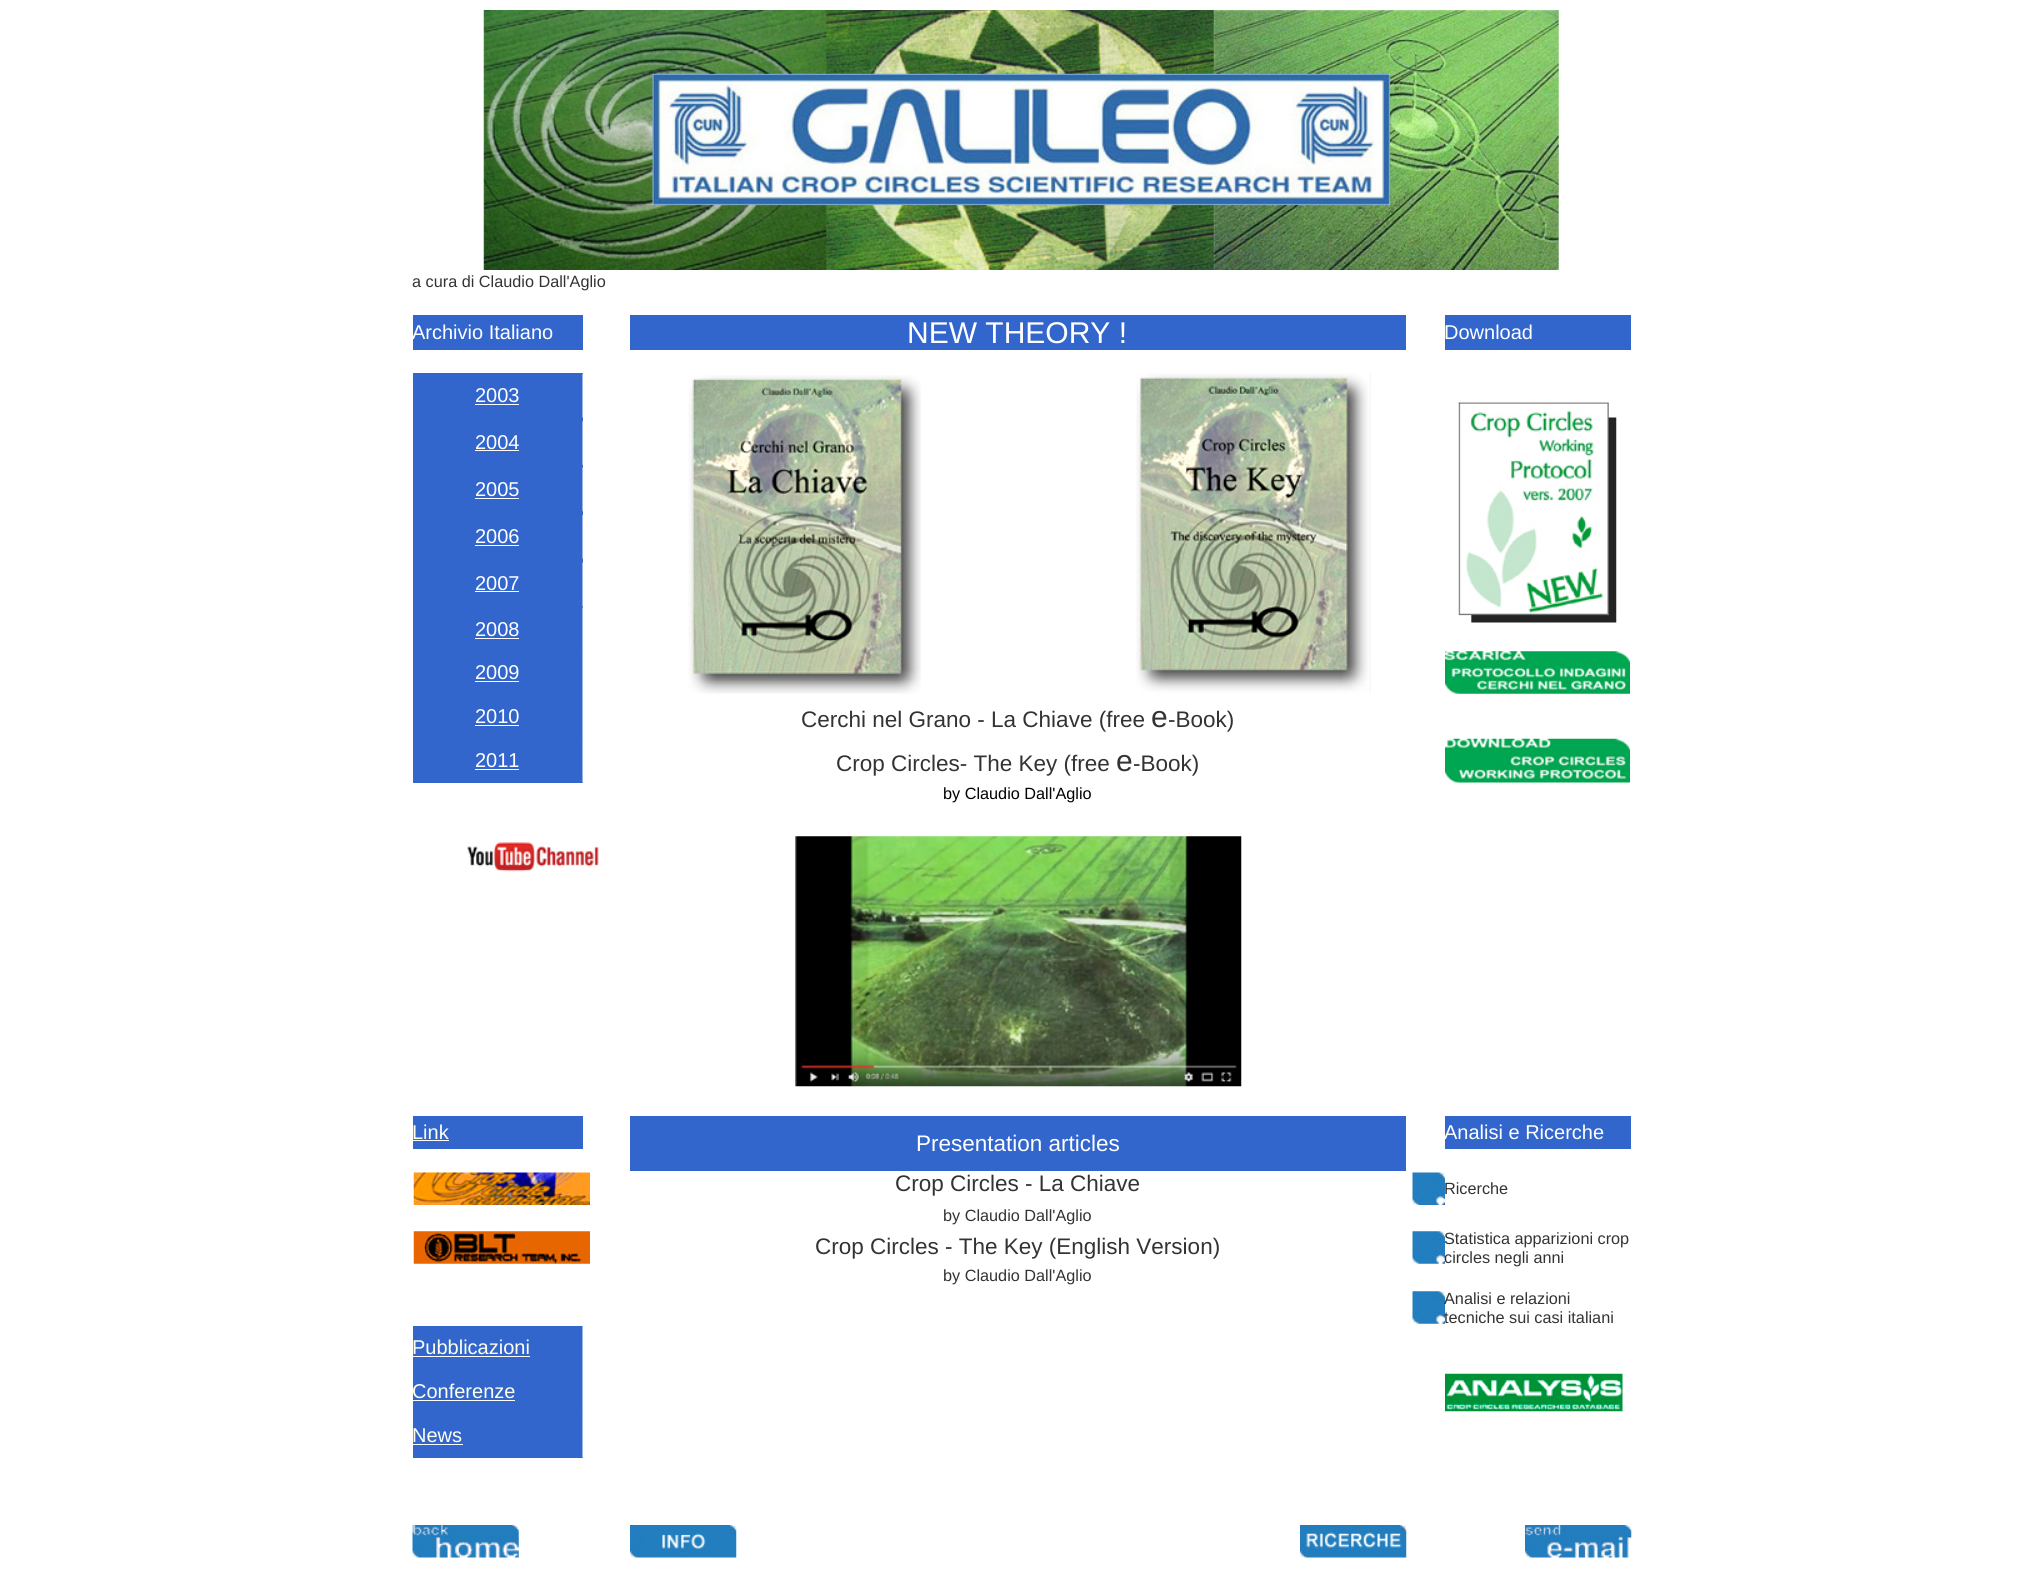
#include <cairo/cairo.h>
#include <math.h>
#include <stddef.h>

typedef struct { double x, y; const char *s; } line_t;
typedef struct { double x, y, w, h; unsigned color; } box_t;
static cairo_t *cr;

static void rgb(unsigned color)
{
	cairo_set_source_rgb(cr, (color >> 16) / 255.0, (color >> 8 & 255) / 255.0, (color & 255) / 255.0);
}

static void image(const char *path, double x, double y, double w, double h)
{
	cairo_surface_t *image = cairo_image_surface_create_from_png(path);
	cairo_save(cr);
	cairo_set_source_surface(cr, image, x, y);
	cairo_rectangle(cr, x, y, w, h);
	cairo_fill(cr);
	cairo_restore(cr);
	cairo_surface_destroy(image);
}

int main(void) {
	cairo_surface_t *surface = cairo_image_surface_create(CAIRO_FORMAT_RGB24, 2042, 1584);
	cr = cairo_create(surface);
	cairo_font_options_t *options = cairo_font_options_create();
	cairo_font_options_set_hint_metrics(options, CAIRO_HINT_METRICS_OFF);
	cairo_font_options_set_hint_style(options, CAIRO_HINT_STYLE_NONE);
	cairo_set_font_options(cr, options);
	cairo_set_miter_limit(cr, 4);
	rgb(0xffffff);
	cairo_paint(cr);
	image("img/1.png", 483, 10, 1076, 260);
	{
		static const box_t items[] = {
			{413, 315, 170, 35, 0x3366cc},
			{630, 315, 776, 35, 0x3366cc},
			{1445, 315, 186, 35, 0x3366cc},
			{413, 373, 170, 410, 0x3366cc},
			{475, 404, 44, 1, 0xffffff},
		};
		for (size_t i = 0; i < sizeof items / sizeof *items; i++) {
			rgb(items[i].color);
			cairo_rectangle(cr, items[i].x, items[i].y, items[i].w, items[i].h);
			cairo_fill(cr);
		}
	}
	image("img/2.png", 582, 373, 1, 45);
	image("img/3.png", 688, 375, 233, 319);
	image("img/4.png", 1136, 372, 235, 322);
	image("img/5.png", 1458, 402, 159, 221);
	cairo_rectangle(cr, 475, 450, 44, 1);
	cairo_fill(cr);
	image("img/6.png", 582, 421, 1, 44);
	cairo_rectangle(cr, 475, 498, 44, 1);
	cairo_fill(cr);
	image("img/7.png", 582, 467, 1, 45);
	cairo_rectangle(cr, 475, 545, 44, 1);
	cairo_fill(cr);
	image("img/8.png", 582, 515, 1, 44);
	cairo_rectangle(cr, 475, 591, 44, 1);
	cairo_fill(cr);
	image("img/7.png", 582, 562, 1, 45);
	cairo_rectangle(cr, 475, 638, 44, 1);
	cairo_fill(cr);
	image("img/7.png", 582, 607, 1, 45);
	cairo_rectangle(cr, 475, 681, 44, 1);
	cairo_fill(cr);
	image("img/9.png", 582, 651, 1, 44);
	image("img/10.png", 1445, 651, 185, 43);
	cairo_rectangle(cr, 475, 725, 44, 1);
	cairo_fill(cr);
	image("img/8.png", 582, 695, 1, 44);
	cairo_rectangle(cr, 475, 769, 44, 1);
	cairo_fill(cr);
	image("img/11.png", 582, 738, 1, 45);
	image("img/12.png", 1445, 738, 185, 45);
	image("img/13.png", 467, 842, 132, 30);
	image("img/14.png", 795, 836, 447, 251);
	{
		static const box_t items[] = {
			{413, 1116, 170, 33, 0x3366cc},
			{413, 1140, 36, 1, 0xffffff},
			{1445, 1116, 186, 33, 0x3366cc},
			{630, 1116, 776, 55, 0x3366cc},
		};
		for (size_t i = 0; i < sizeof items / sizeof *items; i++) {
			rgb(items[i].color);
			cairo_rectangle(cr, items[i].x, items[i].y, items[i].w, items[i].h);
			cairo_fill(cr);
		}
	}
	image("img/15.png", 413, 1172, 177, 33);
	image("img/16.png", 1412, 1172, 33, 33);
	image("img/17.png", 413, 1231, 177, 33);
	image("img/18.png", 1412, 1231, 33, 33);
	image("img/18.png", 1412, 1291, 33, 33);
	cairo_rectangle(cr, 413, 1326, 170, 132);
	cairo_fill(cr);
	rgb(0xffffff);
	cairo_rectangle(cr, 413, 1356, 117, 1);
	cairo_fill(cr);
	image("img/6.png", 582, 1326, 1, 44);
	cairo_rectangle(cr, 413, 1400, 102, 1);
	cairo_fill(cr);
	image("img/8.png", 582, 1370, 1, 44);
	image("img/19.png", 1445, 1373, 178, 39);
	cairo_rectangle(cr, 413, 1444, 50, 1);
	cairo_fill(cr);
	image("img/11.png", 582, 1413, 1, 45);
	image("img/20.png", 412, 1525, 107, 33);
	image("img/21.png", 630, 1525, 107, 33);
	image("img/22.png", 1300, 1525, 107, 33);
	image("img/23.png", 1525, 1525, 107, 33);
	cairo_select_font_face(cr, "Liberation Sans", CAIRO_FONT_SLANT_NORMAL, CAIRO_FONT_WEIGHT_NORMAL);
	cairo_set_font_size(cr, 16.25);
	rgb(0x333333);
	cairo_move_to(cr, 412, 287);
	cairo_show_text(cr, "a cura di Claudio Dall'Aglio");
	cairo_set_font_size(cr, 20);
	rgb(0xffffff);
	cairo_move_to(cr, 412, 339);
	cairo_show_text(cr, "Archivio Italiano");
	cairo_set_font_size(cr, 30);
	cairo_move_to(cr, 907, 343);
	cairo_show_text(cr, "NEW THEORY !");
	cairo_set_font_size(cr, 20);
	{
		static const line_t items[] = {
			{1444, 339, "Download"},
			{475, 402, "2003"},
			{475, 449, "2004"},
			{475, 496, "2005"},
			{475, 543, "2006"},
			{475, 590, "2007"},
			{475, 636, "2008"},
			{475, 679, "2009"},
			{475, 723, "2010"},
		};
		for (size_t i = 0; i < sizeof items / sizeof *items; i++) {
			cairo_move_to(cr, items[i].x, items[i].y);
			cairo_show_text(cr, items[i].s);
		}
	}
	cairo_set_font_size(cr, 22.5);
	rgb(0x333333);
	cairo_move_to(cr, 801, 727);
	cairo_show_text(cr, "Cerchi nel Grano - La Chiave (free");
	cairo_set_font_size(cr, 30);
	cairo_move_to(cr, 1151, 727);
	cairo_show_text(cr, "e");
	cairo_set_font_size(cr, 22.5);
	cairo_move_to(cr, 1168, 727);
	cairo_show_text(cr, "-Book)");
	cairo_set_font_size(cr, 20);
	rgb(0xffffff);
	cairo_move_to(cr, 475, 767);
	cairo_show_text(cr, "2011");
	cairo_set_font_size(cr, 22.5);
	rgb(0x333333);
	cairo_move_to(cr, 836, 771);
	cairo_show_text(cr, "Crop Circles- The Key (free");
	cairo_set_font_size(cr, 30);
	cairo_move_to(cr, 1116, 771);
	cairo_show_text(cr, "e");
	cairo_set_font_size(cr, 22.5);
	cairo_move_to(cr, 1133, 771);
	cairo_show_text(cr, "-Book)");
	cairo_set_font_size(cr, 16.25);
	rgb(0x000000);
	cairo_move_to(cr, 943, 799);
	cairo_show_text(cr, "by Claudio Dall'Aglio");
	cairo_set_font_size(cr, 20);
	rgb(0xfffff0);
	cairo_move_to(cr, 412, 1139);
	cairo_show_text(cr, "Link");
	rgb(0xffffff);
	cairo_move_to(cr, 1444, 1139);
	cairo_show_text(cr, "Analisi e Ricerche");
	cairo_set_font_size(cr, 22.5);
	cairo_move_to(cr, 916, 1151);
	cairo_show_text(cr, "Presentation articles");
	rgb(0x333333);
	cairo_move_to(cr, 895, 1191);
	cairo_show_text(cr, "Crop Circles - La Chiave");
	cairo_set_font_size(cr, 16.25);
	cairo_move_to(cr, 1444, 1194);
	cairo_show_text(cr, "Ricerche");
	cairo_move_to(cr, 943, 1221);
	cairo_show_text(cr, "by Claudio Dall'Aglio");
	cairo_set_font_size(cr, 22.5);
	cairo_move_to(cr, 815, 1254);
	cairo_show_text(cr, "Crop Circles - The Key (English Version)");
	cairo_set_font_size(cr, 16.25);
	{
		static const line_t items[] = {
			{1444, 1244, "Statistica apparizioni crop"},
			{1444, 1263, "circles negli anni"},
			{943, 1281, "by Claudio Dall'Aglio"},
			{1444, 1304, "Analisi e relazioni"},
			{1444, 1323, "tecniche sui casi italiani"},
		};
		for (size_t i = 0; i < sizeof items / sizeof *items; i++) {
			cairo_move_to(cr, items[i].x, items[i].y);
			cairo_show_text(cr, items[i].s);
		}
	}
	cairo_set_font_size(cr, 20);
	rgb(0xfffff0);
	{
		static const line_t items[] = {
			{412, 1354, "Pubblicazioni"},
			{412, 1398, "Conferenze"},
			{412, 1442, "News"},
		};
		for (size_t i = 0; i < sizeof items / sizeof *items; i++) {
			cairo_move_to(cr, items[i].x, items[i].y);
			cairo_show_text(cr, items[i].s);
		}
	}
	cairo_surface_write_to_png(surface, "page.png");
	cairo_font_options_destroy(options);
	cairo_destroy(cr);
	cairo_surface_destroy(surface);
	return 0;
}
